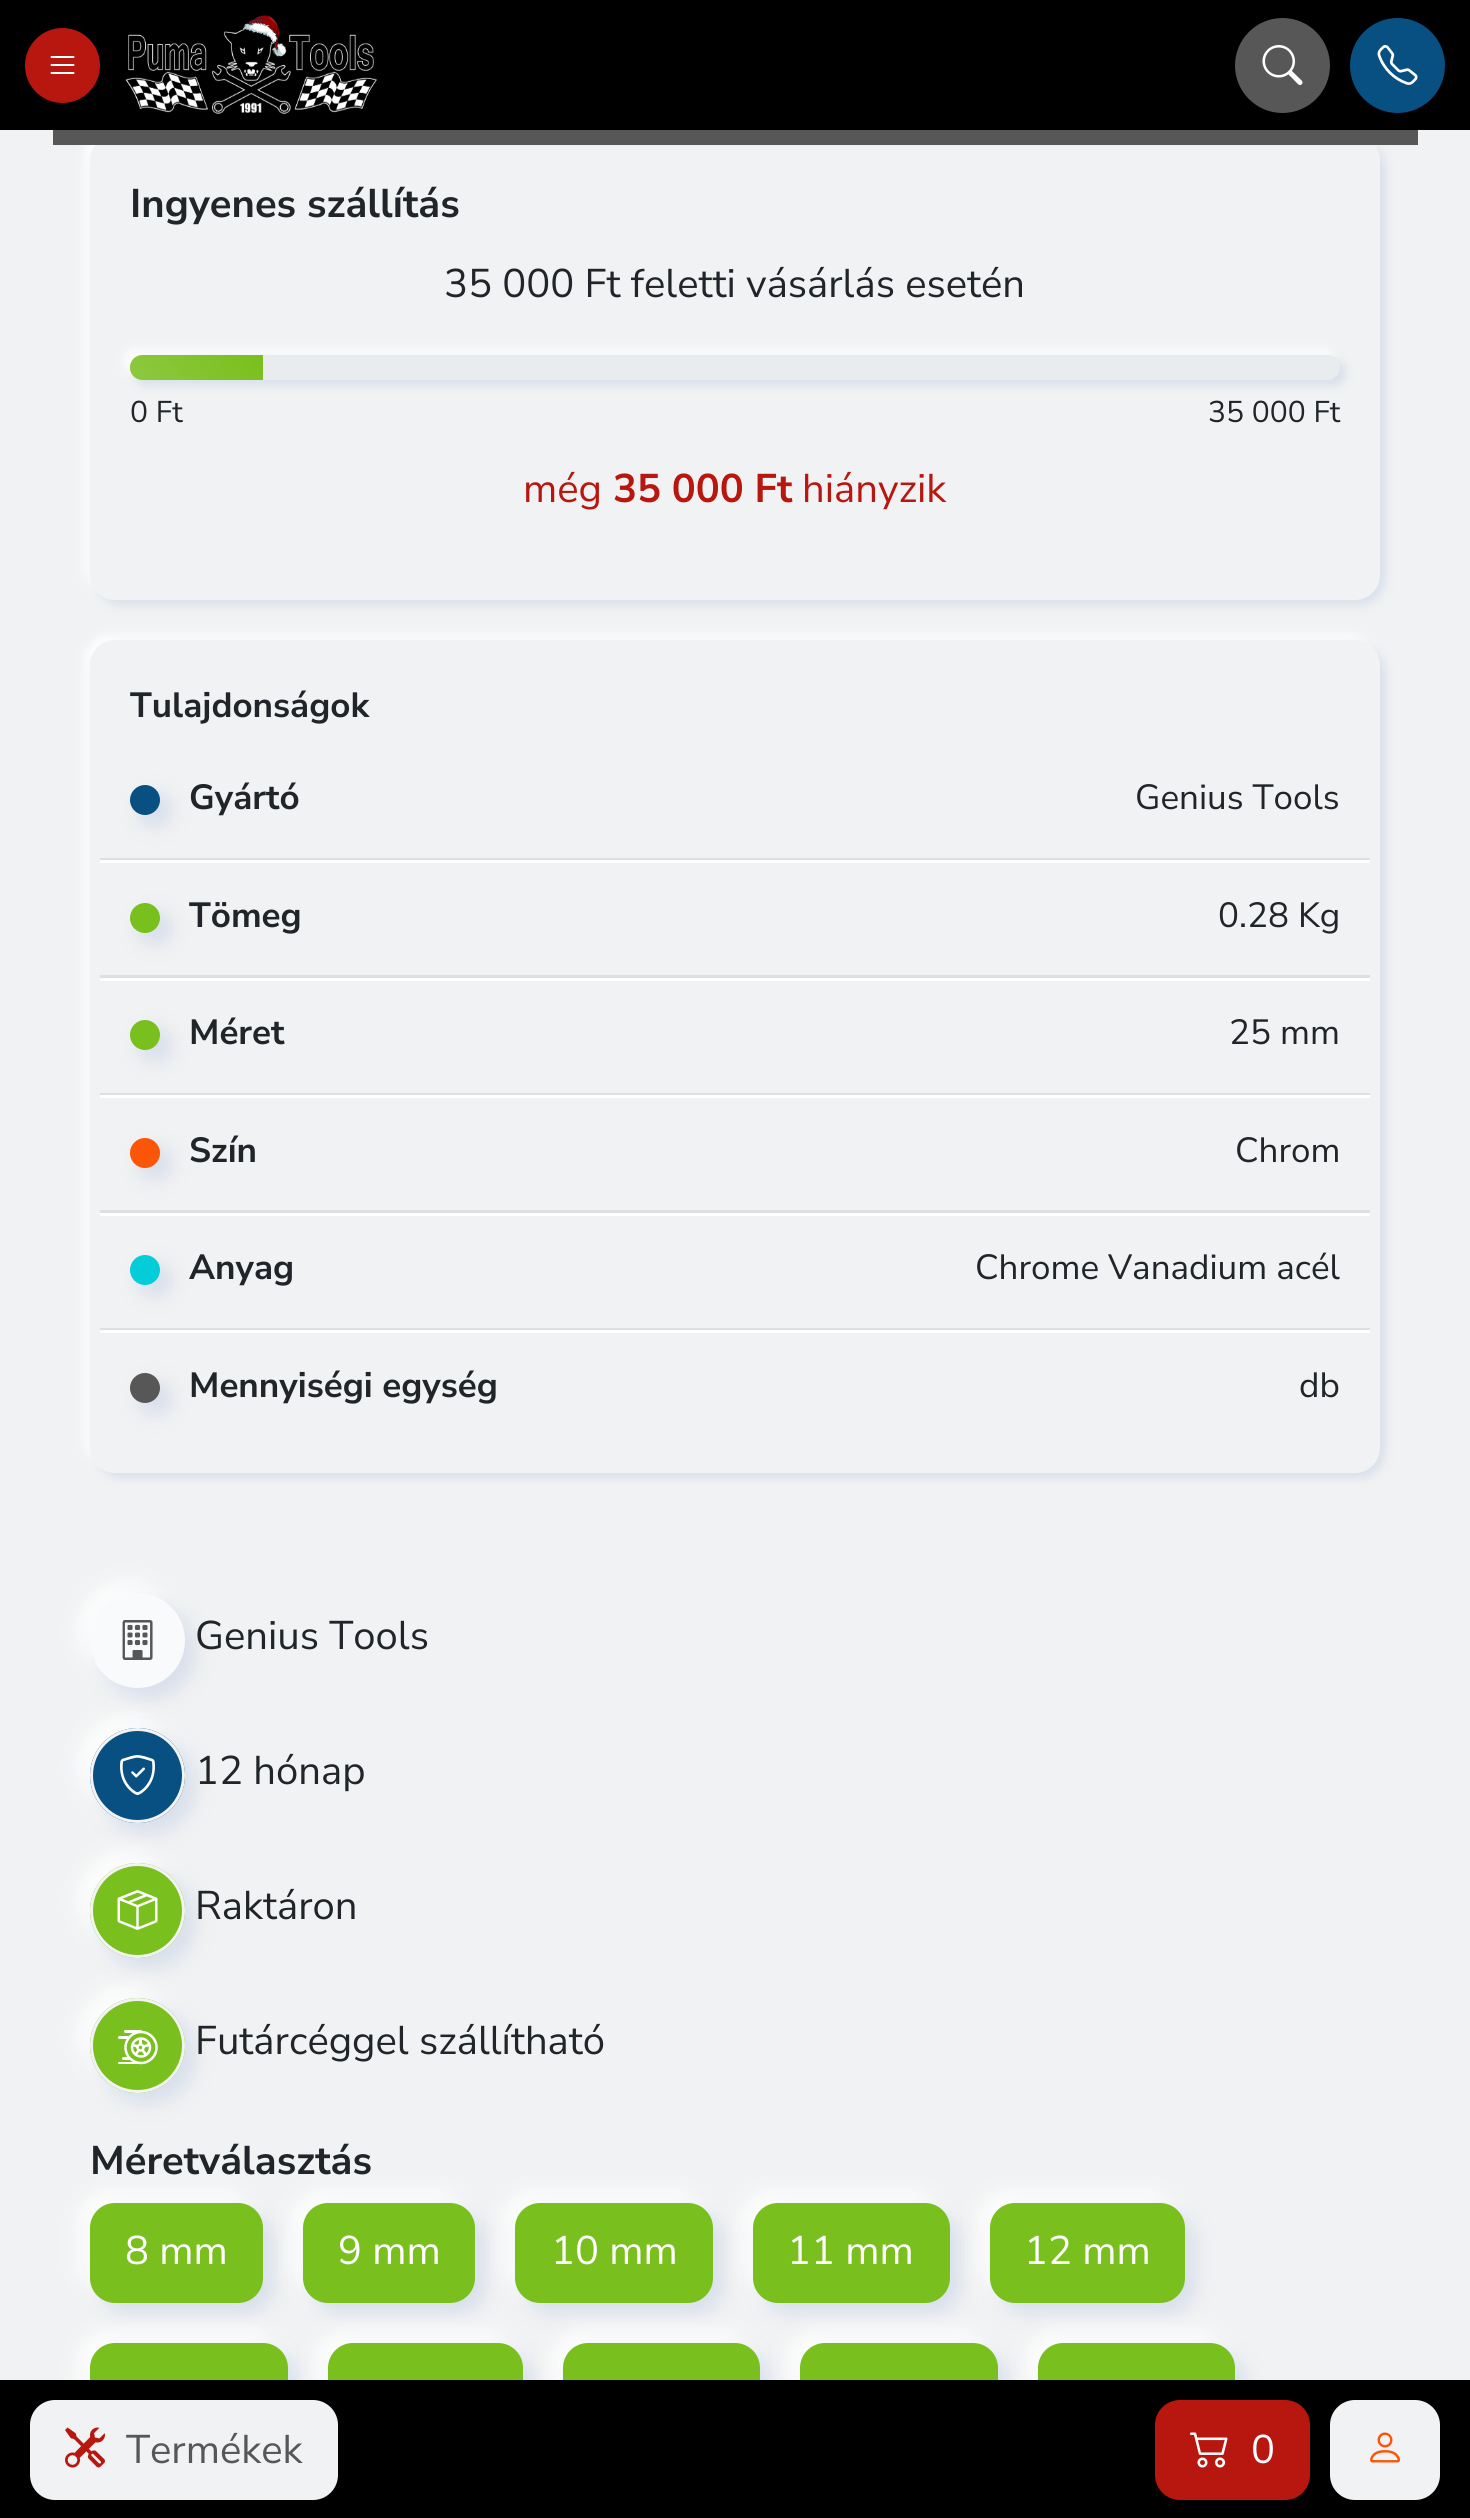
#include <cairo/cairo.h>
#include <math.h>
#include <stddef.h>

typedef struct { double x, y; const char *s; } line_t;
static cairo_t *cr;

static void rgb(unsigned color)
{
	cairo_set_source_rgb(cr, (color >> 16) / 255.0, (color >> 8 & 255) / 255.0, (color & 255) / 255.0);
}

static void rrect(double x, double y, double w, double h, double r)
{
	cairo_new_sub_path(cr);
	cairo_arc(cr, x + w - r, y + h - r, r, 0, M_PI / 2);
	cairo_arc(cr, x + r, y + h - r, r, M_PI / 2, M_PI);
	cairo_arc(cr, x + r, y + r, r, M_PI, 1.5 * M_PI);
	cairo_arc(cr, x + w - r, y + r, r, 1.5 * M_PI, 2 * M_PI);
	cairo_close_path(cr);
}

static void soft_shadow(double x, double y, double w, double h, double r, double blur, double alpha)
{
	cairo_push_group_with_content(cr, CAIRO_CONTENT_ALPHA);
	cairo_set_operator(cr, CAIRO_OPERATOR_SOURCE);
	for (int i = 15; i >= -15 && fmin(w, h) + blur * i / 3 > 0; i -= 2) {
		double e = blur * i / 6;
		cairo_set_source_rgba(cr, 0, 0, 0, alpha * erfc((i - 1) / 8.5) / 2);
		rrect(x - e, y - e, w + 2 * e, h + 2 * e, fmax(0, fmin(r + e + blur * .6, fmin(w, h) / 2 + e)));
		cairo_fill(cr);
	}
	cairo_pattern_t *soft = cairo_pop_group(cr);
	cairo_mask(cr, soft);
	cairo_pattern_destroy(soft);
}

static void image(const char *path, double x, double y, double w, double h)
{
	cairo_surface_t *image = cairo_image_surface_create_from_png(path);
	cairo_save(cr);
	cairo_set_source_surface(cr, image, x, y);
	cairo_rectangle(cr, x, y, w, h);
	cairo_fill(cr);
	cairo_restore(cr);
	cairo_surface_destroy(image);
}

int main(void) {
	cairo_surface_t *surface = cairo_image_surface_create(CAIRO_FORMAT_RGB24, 1470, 2518);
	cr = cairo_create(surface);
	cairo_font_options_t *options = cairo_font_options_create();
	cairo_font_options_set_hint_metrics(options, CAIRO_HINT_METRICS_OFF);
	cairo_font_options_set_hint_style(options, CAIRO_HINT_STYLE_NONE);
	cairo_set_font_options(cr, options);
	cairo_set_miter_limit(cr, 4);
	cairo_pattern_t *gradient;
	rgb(0xf1f2f3);
	cairo_paint(cr);
	rgb(0xffffff);
	soft_shadow(85, 130, 1290, 465, 25, 5, 1);
	rgb(0xd7dfeb);
	soft_shadow(95, 140, 1290, 465, 25, 5, 1);
	rgb(0x000000);
	cairo_rectangle(cr, 0, 0, 1470, 130);
	cairo_fill(cr);
	rgb(0xb8170f);
	cairo_arc(cr, 62.5, 65.5, 36, 0, 2 * M_PI);
	cairo_fill_preserve(cr);
	cairo_set_line_width(cr, 3);
	cairo_stroke(cr);
	image("img/1.png", 50, 56, 25, 18);
	image("img/2.png", 125, 15, 252, 99);
	rgb(0x575757);
	cairo_arc(cr, 1282.5, 65.5, 47.5, 0, 2 * M_PI);
	cairo_fill(cr);
	image("img/3.png", 1262, 45, 41, 40);
	rgb(0x084f82);
	cairo_arc(cr, 1397.5, 65.5, 47.5, 0, 2 * M_PI);
	cairo_fill(cr);
	image("img/4.png", 1377, 45, 41, 40);
	rgb(0xf1f2f3);
	rrect(90, 135, 1290, 465, 25);
	cairo_fill(cr);
	rgb(0x575757);
	cairo_rectangle(cr, 53, 130, 1365, 15);
	cairo_fill(cr);
	rgb(0xffffff);
	soft_shadow(125, 350, 1210, 25, 12.5, 5, 1);
	rgb(0xd7dfeb);
	soft_shadow(135, 360, 1210, 25, 12.5, 5, 1);
	rgb(0xe9ecef);
	rrect(130, 355, 1210, 25, 12.5);
	cairo_fill(cr);
	rgb(0x79bf1d);
	cairo_new_path(cr);
	cairo_move_to(cr, 142.5, 355);
	cairo_line_to(cr, 263, 355);
	cairo_line_to(cr, 263, 380);
	cairo_line_to(cr, 142.5, 380);
	cairo_curve_to(cr, 135.5, 380, 130, 374.5, 130, 367.5);
	cairo_curve_to(cr, 130, 360.5, 135.5, 355, 142.5, 355);
	cairo_close_path(cr);
	cairo_fill(cr);
	gradient = cairo_pattern_create_linear(146, 403, 247, 332);
	cairo_pattern_add_color_stop_rgba(gradient, 0, 1, 1, 1, 0.15);
	cairo_pattern_add_color_stop_rgba(gradient, 1, 1, 1, 1, 0);
	cairo_set_source(cr, gradient);
	cairo_pattern_destroy(gradient);
	cairo_new_path(cr);
	cairo_move_to(cr, 142.5, 355);
	cairo_line_to(cr, 263, 355);
	cairo_line_to(cr, 263, 380);
	cairo_line_to(cr, 142.5, 380);
	cairo_curve_to(cr, 135.5, 380, 130, 374.5, 130, 367.5);
	cairo_curve_to(cr, 130, 360.5, 135.5, 355, 142.5, 355);
	cairo_close_path(cr);
	cairo_fill(cr);
	rgb(0xffffff);
	soft_shadow(85, 635, 1290, 833, 25, 5, 1);
	rgb(0xd7dfeb);
	soft_shadow(95, 645, 1290, 833, 25, 5, 1);
	rgb(0xf1f2f3);
	rrect(90, 640, 1290, 833, 25);
	cairo_fill(cr);
	rgb(0xd7dfeb);
	soft_shadow(140, 795, 30, 30, 15, 10, 1);
	rgb(0x084f82);
	cairo_arc(cr, 145, 800, 15, 0, 2 * M_PI);
	cairo_fill(cr);
	rgb(0xdfdfdf);
	cairo_rectangle(cr, 100, 858, 1270, 2);
	cairo_fill(cr);
	rgb(0xffffff);
	cairo_rectangle(cr, 100, 860, 1270, 3);
	cairo_fill(cr);
	rgb(0xd7dfeb);
	soft_shadow(140, 913, 30, 30, 15, 10, 1);
	rgb(0x79bf1d);
	cairo_arc(cr, 145, 918, 15, 0, 2 * M_PI);
	cairo_fill(cr);
	rgb(0xdfdfdf);
	cairo_rectangle(cr, 100, 975, 1270, 3);
	cairo_fill(cr);
	rgb(0xffffff);
	cairo_rectangle(cr, 100, 978, 1270, 3);
	cairo_fill(cr);
	rgb(0xd7dfeb);
	soft_shadow(140, 1030, 30, 30, 15, 10, 1);
	rgb(0x79bf1d);
	cairo_arc(cr, 145, 1035, 15, 0, 2 * M_PI);
	cairo_fill(cr);
	rgb(0xdfdfdf);
	cairo_rectangle(cr, 100, 1093, 1270, 2);
	cairo_fill(cr);
	rgb(0xffffff);
	cairo_rectangle(cr, 100, 1095, 1270, 3);
	cairo_fill(cr);
	rgb(0xd7dfeb);
	soft_shadow(140, 1148, 30, 30, 15, 10, 1);
	rgb(0xfb5607);
	cairo_arc(cr, 145, 1153, 15, 0, 2 * M_PI);
	cairo_fill(cr);
	rgb(0xdfdfdf);
	cairo_rectangle(cr, 100, 1210, 1270, 3);
	cairo_fill(cr);
	rgb(0xffffff);
	cairo_rectangle(cr, 100, 1213, 1270, 3);
	cairo_fill(cr);
	rgb(0xd7dfeb);
	soft_shadow(140, 1265, 30, 30, 15, 10, 1);
	rgb(0x05ccd9);
	cairo_arc(cr, 145, 1270, 15, 0, 2 * M_PI);
	cairo_fill(cr);
	rgb(0xdfdfdf);
	cairo_rectangle(cr, 100, 1328, 1270, 2);
	cairo_fill(cr);
	rgb(0xffffff);
	cairo_rectangle(cr, 100, 1330, 1270, 3);
	cairo_fill(cr);
	rgb(0xd7dfeb);
	soft_shadow(140, 1383, 30, 30, 15, 10, 1);
	rgb(0x575757);
	cairo_arc(cr, 145, 1388, 15, 0, 2 * M_PI);
	cairo_fill(cr);
	rgb(0xffffff);
	soft_shadow(80, 1583, 95, 95, 47.5, 10, 1);
	rgb(0xd7dfeb);
	soft_shadow(100, 1603, 95, 95, 47.5, 10, 1);
	rgb(0xf9fafb);
	cairo_arc(cr, 137.5, 1640.5, 47.5, 0, 2 * M_PI);
	cairo_fill(cr);
	image("img/5.png", 122, 1620, 31, 40);
	rgb(0xffffff);
	soft_shadow(80, 1718, 95, 95, 47.5, 10, 1);
	rgb(0xd7dfeb);
	soft_shadow(100, 1738, 95, 95, 47.5, 10, 1);
	rgb(0x084f82);
	cairo_arc(cr, 137.5, 1775.5, 47.5, 0, 2 * M_PI);
	cairo_fill(cr);
	image("img/6.png", 120, 1755, 35, 40);
	cairo_arc(cr, 137.5, 1775.5, 46, 0, 2 * M_PI);
	rgb(0xf3f3f3);
	cairo_stroke(cr);
	rgb(0xffffff);
	soft_shadow(80, 1853, 95, 95, 47.5, 10, 1);
	rgb(0xd7dfeb);
	soft_shadow(100, 1873, 95, 95, 47.5, 10, 1);
	rgb(0x79bf1d);
	cairo_arc(cr, 137.5, 1910.5, 47.5, 0, 2 * M_PI);
	cairo_fill(cr);
	image("img/7.png", 117, 1890, 41, 40);
	cairo_arc(cr, 137.5, 1910.5, 46, 0, 2 * M_PI);
	rgb(0xf3f3f3);
	cairo_stroke(cr);
	rgb(0xffffff);
	soft_shadow(80, 1988, 95, 95, 47.5, 10, 1);
	rgb(0xd7dfeb);
	soft_shadow(100, 2008, 95, 95, 47.5, 10, 1);
	rgb(0x79bf1d);
	cairo_arc(cr, 137.5, 2045.5, 47.5, 0, 2 * M_PI);
	cairo_fill(cr);
	image("img/8.png", 118, 2030, 40, 35);
	cairo_arc(cr, 137.5, 2045.5, 46, 0, 2 * M_PI);
	rgb(0xf3f3f3);
	cairo_stroke(cr);
	rgb(0xffffff);
	soft_shadow(80, 2193, 173, 100, 25, 10, 1);
	rgb(0xd7dfeb);
	soft_shadow(100, 2213, 173, 100, 25, 10, 1);
	rgb(0x79bf1d);
	rrect(91.5, 2204.5, 170, 97, 23.5);
	cairo_fill_preserve(cr);
	cairo_stroke(cr);
	rgb(0xffffff);
	soft_shadow(293, 2193, 172, 100, 25, 10, 1);
	rgb(0xd7dfeb);
	soft_shadow(313, 2213, 172, 100, 25, 10, 1);
	rgb(0x79bf1d);
	rrect(304.5, 2204.5, 169, 97, 23.5);
	cairo_fill_preserve(cr);
	cairo_stroke(cr);
	rgb(0xffffff);
	soft_shadow(505, 2193, 198, 100, 25, 10, 1);
	rgb(0xd7dfeb);
	soft_shadow(525, 2213, 198, 100, 25, 10, 1);
	rgb(0x79bf1d);
	rrect(516.5, 2204.5, 195, 97, 23.5);
	cairo_fill_preserve(cr);
	cairo_stroke(cr);
	rgb(0xffffff);
	soft_shadow(743, 2193, 197, 100, 25, 10, 1);
	rgb(0xd7dfeb);
	soft_shadow(763, 2213, 197, 100, 25, 10, 1);
	rgb(0x79bf1d);
	rrect(754.5, 2204.5, 194, 97, 23.5);
	cairo_fill_preserve(cr);
	cairo_stroke(cr);
	rgb(0xffffff);
	soft_shadow(980, 2193, 195, 100, 25, 10, 1);
	rgb(0xd7dfeb);
	soft_shadow(1000, 2213, 195, 100, 25, 10, 1);
	rgb(0x79bf1d);
	rrect(991.5, 2204.5, 192, 97, 23.5);
	cairo_fill_preserve(cr);
	cairo_stroke(cr);
	rgb(0xffffff);
	soft_shadow(80, 2333, 198, 100, 25, 10, 1);
	rgb(0xd7dfeb);
	soft_shadow(100, 2353, 198, 100, 25, 10, 1);
	rgb(0x79bf1d);
	rrect(91.5, 2344.5, 195, 97, 23.5);
	cairo_fill_preserve(cr);
	cairo_stroke(cr);
	rgb(0xffffff);
	soft_shadow(318, 2333, 195, 100, 25, 10, 1);
	rgb(0xd7dfeb);
	soft_shadow(338, 2353, 195, 100, 25, 10, 1);
	rgb(0x79bf1d);
	rrect(329.5, 2344.5, 192, 97, 23.5);
	cairo_fill_preserve(cr);
	cairo_stroke(cr);
	rgb(0xffffff);
	soft_shadow(553, 2333, 197, 100, 25, 10, 1);
	rgb(0xd7dfeb);
	soft_shadow(573, 2353, 197, 100, 25, 10, 1);
	rgb(0x79bf1d);
	rrect(564.5, 2344.5, 194, 97, 23.5);
	cairo_fill_preserve(cr);
	cairo_stroke(cr);
	rgb(0xffffff);
	soft_shadow(790, 2333, 198, 100, 25, 10, 1);
	rgb(0xd7dfeb);
	soft_shadow(810, 2353, 198, 100, 25, 10, 1);
	rgb(0x79bf1d);
	rrect(801.5, 2344.5, 195, 97, 23.5);
	cairo_fill_preserve(cr);
	cairo_stroke(cr);
	rgb(0xffffff);
	soft_shadow(1028, 2333, 197, 100, 25, 10, 1);
	rgb(0xd7dfeb);
	soft_shadow(1048, 2353, 197, 100, 25, 10, 1);
	rgb(0x79bf1d);
	rrect(1039.5, 2344.5, 194, 97, 23.5);
	cairo_fill_preserve(cr);
	cairo_stroke(cr);
	rgb(0x000000);
	cairo_rectangle(cr, 0, 2380, 1470, 138);
	cairo_fill(cr);
	rgb(0xf1f2f3);
	rrect(31.5, 2401.5, 305, 97, 23.5);
	cairo_fill_preserve(cr);
	cairo_stroke(cr);
	image("img/9.png", 65, 2427, 40, 41);
	rgb(0xb8170f);
	rrect(1156.5, 2401.5, 152, 97, 23.5);
	cairo_fill_preserve(cr);
	cairo_stroke(cr);
	image("img/10.png", 1190, 2432, 38, 36);
	rgb(0xf1f2f3);
	rrect(1331.5, 2401.5, 107, 97, 23.5);
	cairo_fill_preserve(cr);
	cairo_stroke(cr);
	image("img/11.png", 1370, 2432, 30, 31);
	cairo_select_font_face(cr, "Nunito Sans", CAIRO_FONT_SLANT_NORMAL, CAIRO_FONT_WEIGHT_BOLD);
	cairo_set_font_size(cr, 40);
	rgb(0x212529);
	cairo_move_to(cr, 130, 217);
	cairo_show_text(cr, "Ingyenes szállítás");
	cairo_select_font_face(cr, "Nunito Sans", CAIRO_FONT_SLANT_NORMAL, CAIRO_FONT_WEIGHT_NORMAL);
	cairo_move_to(cr, 444, 297);
	cairo_show_text(cr, "35 000 Ft feletti vásárlás esetén");
	cairo_set_font_size(cr, 30);
	cairo_move_to(cr, 130, 422);
	cairo_show_text(cr, "0 Ft");
	cairo_move_to(cr, 1208, 422);
	cairo_show_text(cr, "35 000 Ft");
	cairo_set_font_size(cr, 40);
	rgb(0xb8170f);
	cairo_move_to(cr, 523, 502);
	cairo_show_text(cr, "még");
	cairo_select_font_face(cr, "Nunito Sans", CAIRO_FONT_SLANT_NORMAL, CAIRO_FONT_WEIGHT_BOLD);
	cairo_move_to(cr, 613, 502);
	cairo_show_text(cr, "35 000 Ft");
	cairo_select_font_face(cr, "Nunito Sans", CAIRO_FONT_SLANT_NORMAL, CAIRO_FONT_WEIGHT_NORMAL);
	cairo_move_to(cr, 802, 502);
	cairo_show_text(cr, "hiányzik");
	cairo_select_font_face(cr, "Nunito Sans", CAIRO_FONT_SLANT_NORMAL, CAIRO_FONT_WEIGHT_BOLD);
	cairo_set_font_size(cr, 35);
	rgb(0x212529);
	cairo_move_to(cr, 130, 717);
	cairo_show_text(cr, "Tulajdonságok");
	cairo_move_to(cr, 189, 809);
	cairo_show_text(cr, "Gyártó");
	cairo_select_font_face(cr, "Nunito Sans", CAIRO_FONT_SLANT_NORMAL, CAIRO_FONT_WEIGHT_NORMAL);
	cairo_move_to(cr, 1135, 809);
	cairo_show_text(cr, "Genius Tools");
	cairo_select_font_face(cr, "Nunito Sans", CAIRO_FONT_SLANT_NORMAL, CAIRO_FONT_WEIGHT_BOLD);
	cairo_move_to(cr, 189, 927);
	cairo_show_text(cr, "Tömeg");
	cairo_select_font_face(cr, "Nunito Sans", CAIRO_FONT_SLANT_NORMAL, CAIRO_FONT_WEIGHT_NORMAL);
	cairo_move_to(cr, 1218, 927);
	cairo_show_text(cr, "0.28 Kg");
	cairo_select_font_face(cr, "Nunito Sans", CAIRO_FONT_SLANT_NORMAL, CAIRO_FONT_WEIGHT_BOLD);
	cairo_move_to(cr, 189, 1044);
	cairo_show_text(cr, "Méret");
	cairo_select_font_face(cr, "Nunito Sans", CAIRO_FONT_SLANT_NORMAL, CAIRO_FONT_WEIGHT_NORMAL);
	cairo_move_to(cr, 1229, 1044);
	cairo_show_text(cr, "25 mm");
	cairo_select_font_face(cr, "Nunito Sans", CAIRO_FONT_SLANT_NORMAL, CAIRO_FONT_WEIGHT_BOLD);
	cairo_move_to(cr, 189, 1162);
	cairo_show_text(cr, "Szín");
	cairo_select_font_face(cr, "Nunito Sans", CAIRO_FONT_SLANT_NORMAL, CAIRO_FONT_WEIGHT_NORMAL);
	cairo_move_to(cr, 1235, 1162);
	cairo_show_text(cr, "Chrom");
	cairo_select_font_face(cr, "Nunito Sans", CAIRO_FONT_SLANT_NORMAL, CAIRO_FONT_WEIGHT_BOLD);
	cairo_move_to(cr, 189, 1279);
	cairo_show_text(cr, "Anyag");
	cairo_select_font_face(cr, "Nunito Sans", CAIRO_FONT_SLANT_NORMAL, CAIRO_FONT_WEIGHT_NORMAL);
	cairo_move_to(cr, 975, 1279);
	cairo_show_text(cr, "Chrome Vanadium acél");
	cairo_select_font_face(cr, "Nunito Sans", CAIRO_FONT_SLANT_NORMAL, CAIRO_FONT_WEIGHT_BOLD);
	cairo_move_to(cr, 189, 1397);
	cairo_show_text(cr, "Mennyiségi egység");
	cairo_select_font_face(cr, "Nunito Sans", CAIRO_FONT_SLANT_NORMAL, CAIRO_FONT_WEIGHT_NORMAL);
	cairo_move_to(cr, 1299, 1397);
	cairo_show_text(cr, "db");
	cairo_set_font_size(cr, 40);
	{
		static const line_t items[] = {
			{195, 1649, "Genius Tools"},
			{195, 1784, "12 hónap"},
			{195, 1919, "Raktáron"},
			{195, 2054, "Futárcéggel szállítható"},
		};
		for (size_t i = 0; i < sizeof items / sizeof *items; i++) {
			cairo_move_to(cr, items[i].x, items[i].y);
			cairo_show_text(cr, items[i].s);
		}
	}
	cairo_select_font_face(cr, "Nunito Sans", CAIRO_FONT_SLANT_NORMAL, CAIRO_FONT_WEIGHT_BOLD);
	cairo_move_to(cr, 90, 2174);
	cairo_show_text(cr, "Méretválasztás");
	cairo_select_font_face(cr, "Nunito Sans", CAIRO_FONT_SLANT_NORMAL, CAIRO_FONT_WEIGHT_NORMAL);
	rgb(0xffffff);
	{
		static const line_t items[] = {
			{125, 2264, "8 mm"},
			{338, 2264, "9 mm"},
			{551, 2264, "10 mm"},
			{787, 2264, "11 mm"},
			{1024, 2264, "12 mm"},
		};
		for (size_t i = 0; i < sizeof items / sizeof *items; i++) {
			cairo_move_to(cr, items[i].x, items[i].y);
			cairo_show_text(cr, items[i].s);
		}
	}
	rgb(0x575757);
	cairo_move_to(cr, 126, 2463);
	cairo_show_text(cr, "Termékek");
	rgb(0xffffff);
	cairo_move_to(cr, 1251, 2463);
	cairo_show_text(cr, "0");
	cairo_surface_write_to_png(surface, "page.png");
	cairo_font_options_destroy(options);
	cairo_destroy(cr);
	cairo_surface_destroy(surface);
	return 0;
}
